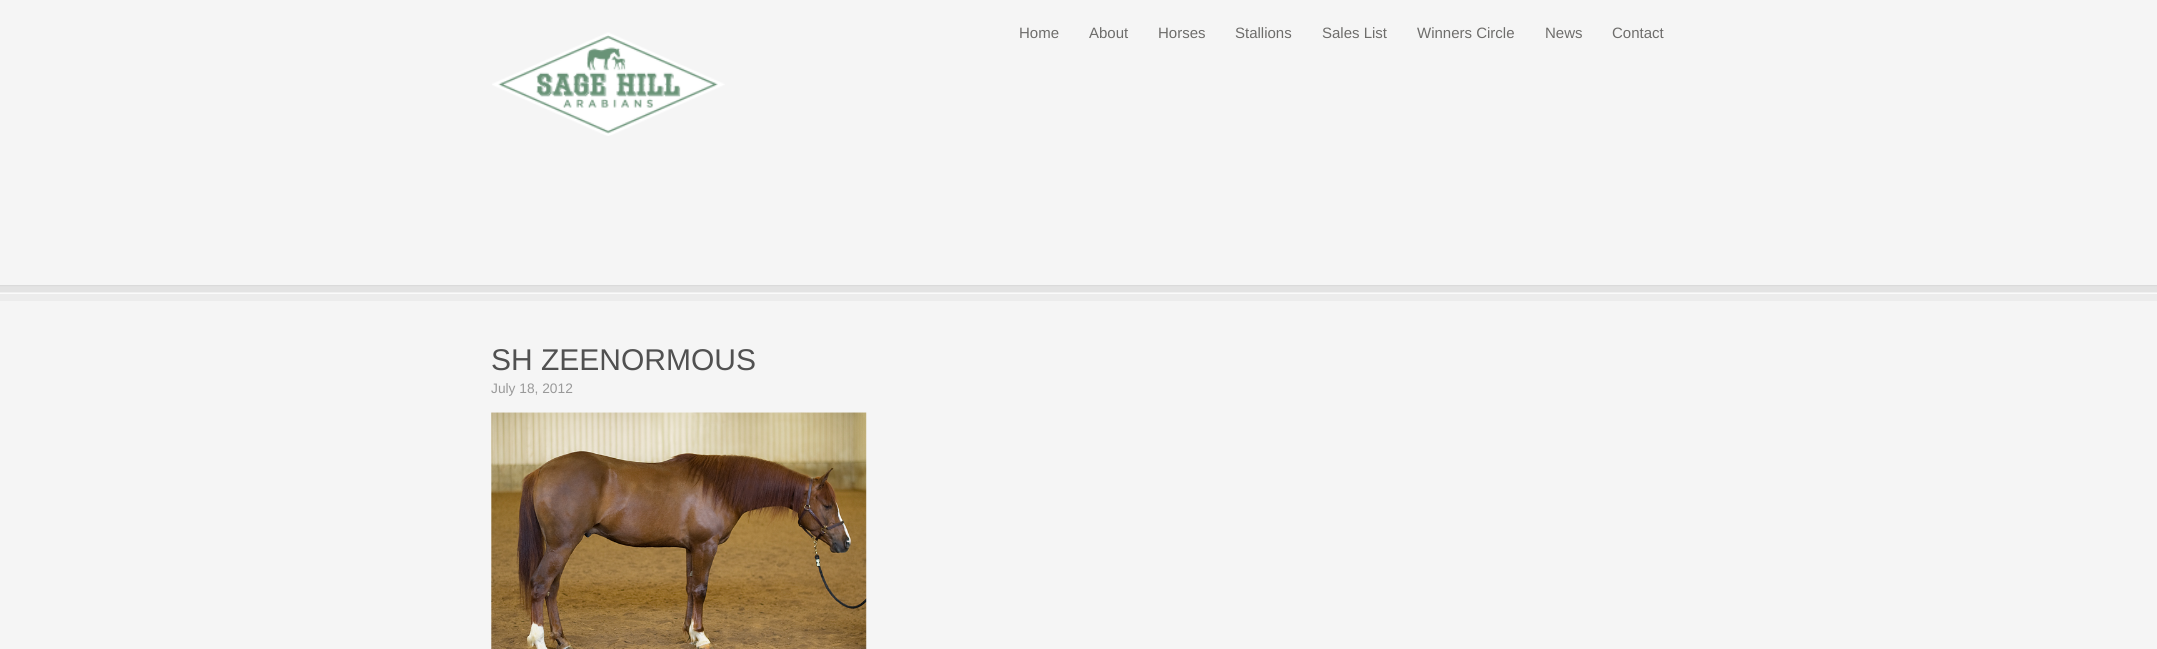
#include <cairo/cairo.h>
#include <math.h>
#include <stddef.h>

typedef struct { double x, y; const char *s; } line_t;
static cairo_t *cr;

static void rgb(unsigned color)
{
	cairo_set_source_rgb(cr, (color >> 16) / 255.0, (color >> 8 & 255) / 255.0, (color & 255) / 255.0);
}

static void image(const char *path, double x, double y, double w, double h)
{
	cairo_surface_t *image = cairo_image_surface_create_from_png(path);
	cairo_save(cr);
	cairo_set_source_surface(cr, image, x, y);
	cairo_rectangle(cr, x, y, w, h);
	cairo_fill(cr);
	cairo_restore(cr);
	cairo_surface_destroy(image);
}

int main(void) {
	cairo_surface_t *surface = cairo_image_surface_create(CAIRO_FORMAT_RGB24, 2157, 649);
	cr = cairo_create(surface);
	cairo_font_options_t *options = cairo_font_options_create();
	cairo_font_options_set_hint_metrics(options, CAIRO_HINT_METRICS_OFF);
	cairo_font_options_set_hint_style(options, CAIRO_HINT_STYLE_NONE);
	cairo_set_font_options(cr, options);
	cairo_set_miter_limit(cr, 4);
	rgb(0xf5f5f5);
	cairo_paint(cr);
	image("img/1.png", 492, 32, 233, 104);
	image("img/2.png", 0, 285, 2157, 16);
	image("img/3.png", 491, 412, 376, 237);
	cairo_select_font_face(cr, "Liberation Sans", CAIRO_FONT_SLANT_NORMAL, CAIRO_FONT_WEIGHT_NORMAL);
	cairo_set_font_size(cr, 15);
	rgb(0x6e6d6b);
	{
		static const line_t items[] = {
			{1019, 38, "Home"},
			{1089, 38, "About"},
			{1158, 38, "Horses"},
			{1235, 38, "Stallions"},
			{1322, 38, "Sales List"},
			{1417, 38, "Winners Circle"},
			{1545, 38, "News"},
			{1612, 38, "Contact"},
		};
		for (size_t i = 0; i < sizeof items / sizeof *items; i++) {
			cairo_move_to(cr, items[i].x, items[i].y);
			cairo_show_text(cr, items[i].s);
		}
	}
	cairo_set_font_size(cr, 30);
	rgb(0x515151);
	cairo_move_to(cr, 491, 370);
	cairo_show_text(cr, "SH ZEENORMOUS");
	cairo_set_font_size(cr, 13.75);
	rgb(0x999999);
	cairo_move_to(cr, 491, 393);
	cairo_show_text(cr, "July 18, 2012");
	cairo_surface_write_to_png(surface, "page.png");
	cairo_font_options_destroy(options);
	cairo_destroy(cr);
	cairo_surface_destroy(surface);
	return 0;
}
